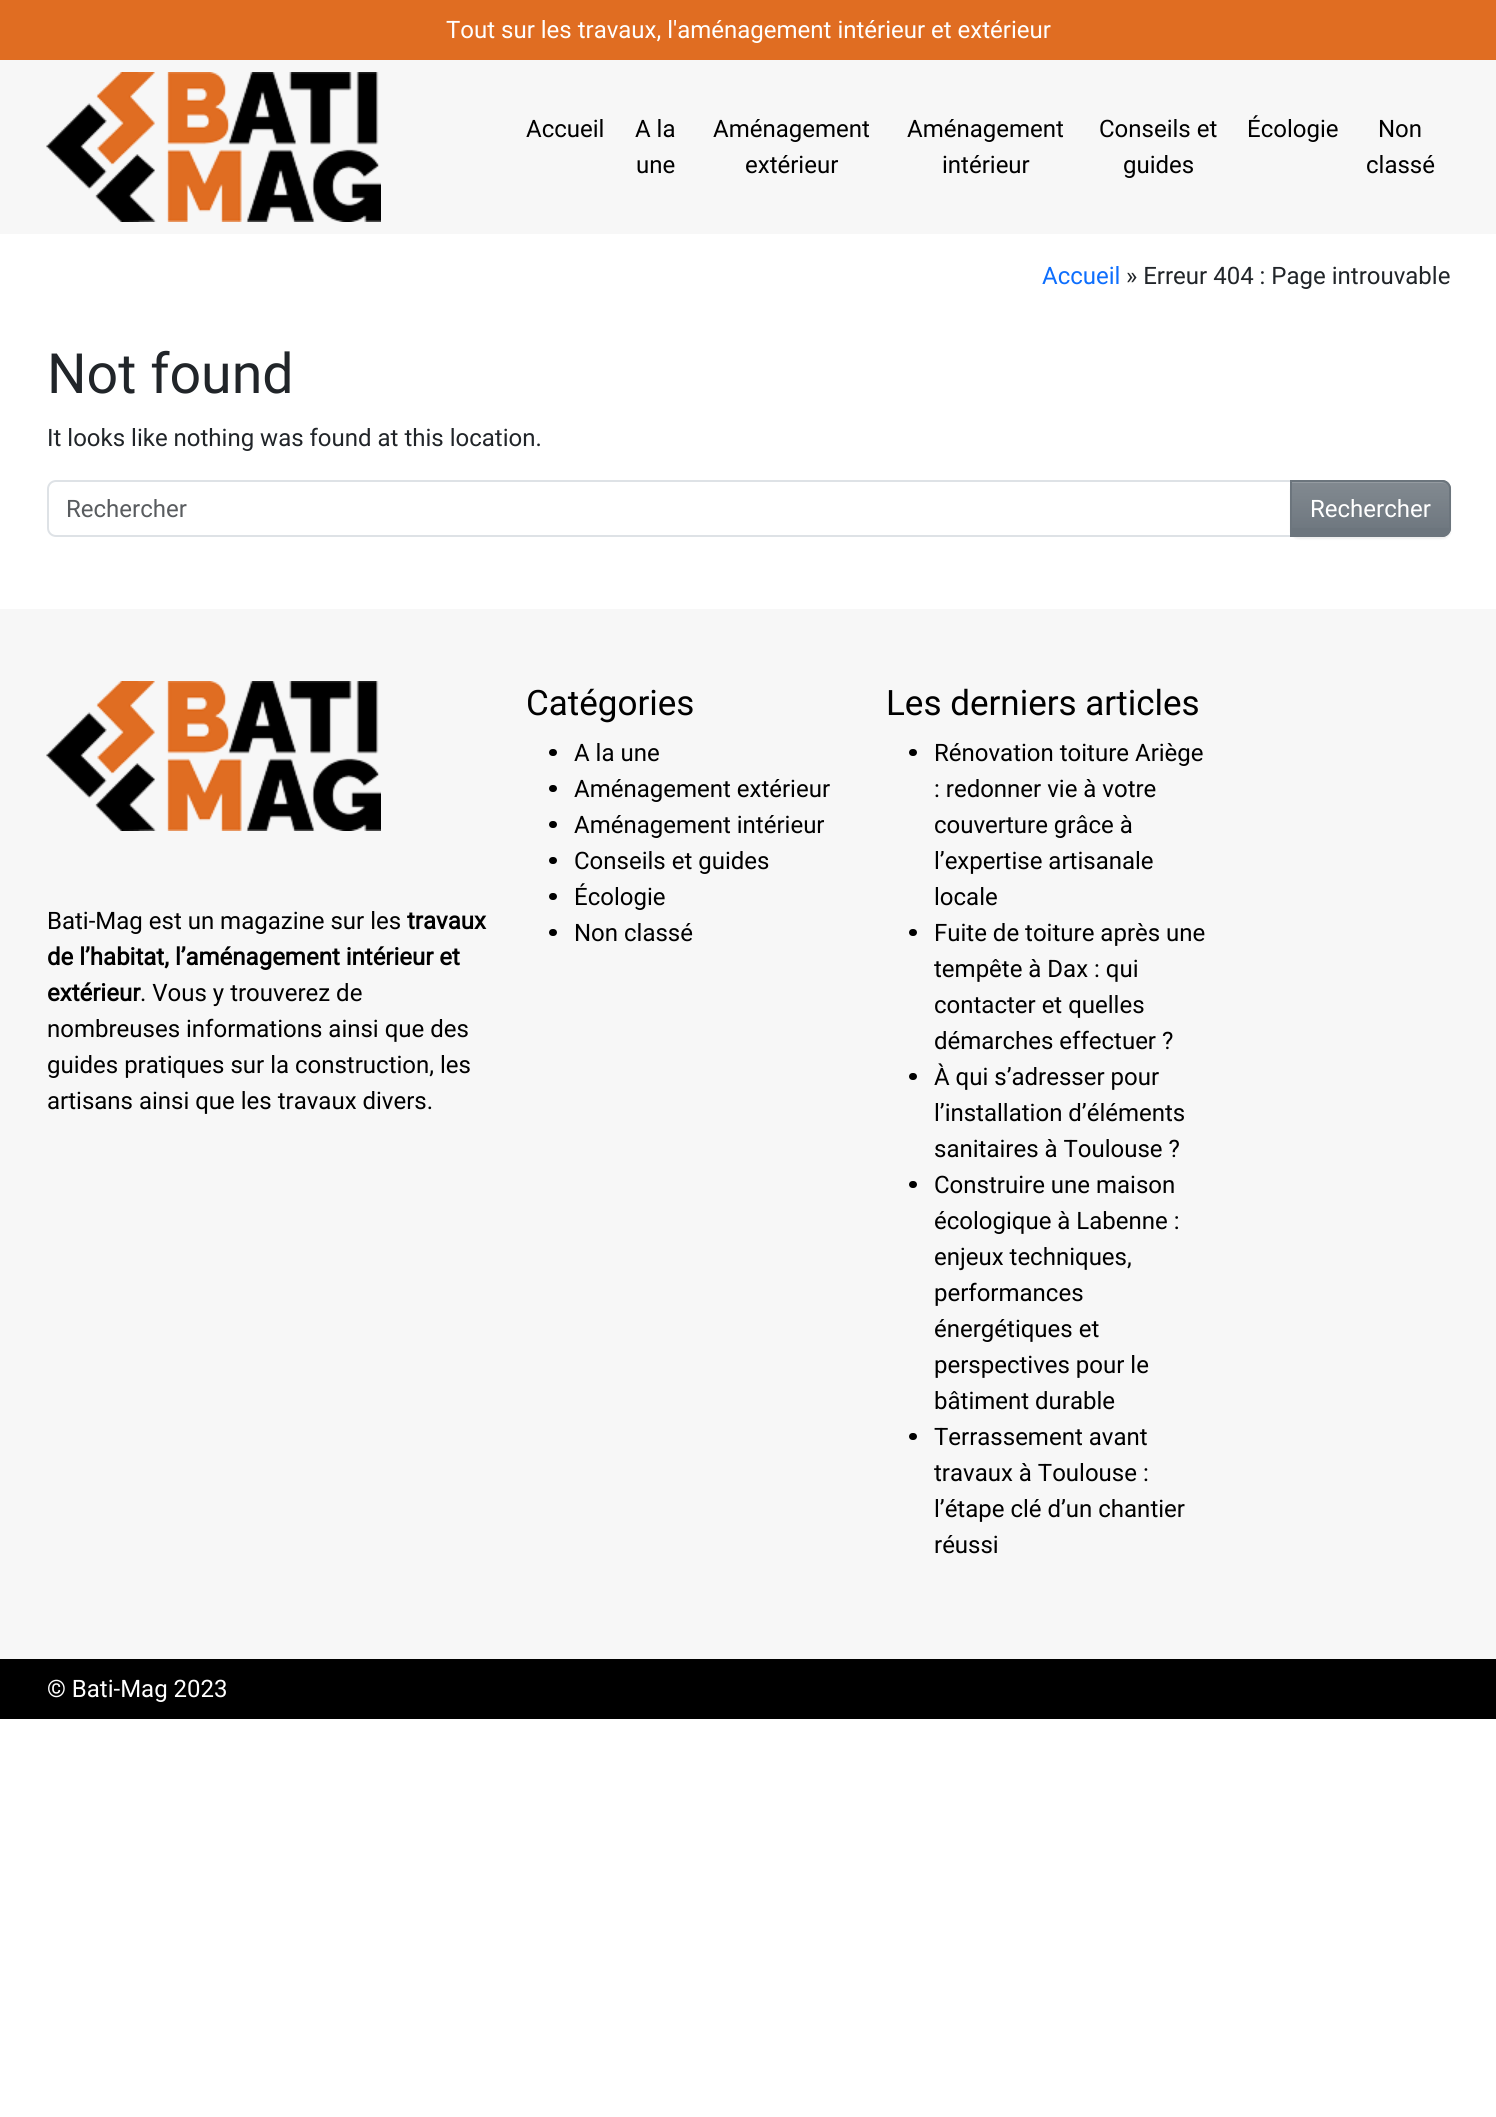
#include <cairo/cairo.h>
#include <math.h>
#include <stddef.h>

typedef struct { double x, y; const char *s; } line_t;
static cairo_t *cr;

static void rgb(unsigned color)
{
	cairo_set_source_rgb(cr, (color >> 16) / 255.0, (color >> 8 & 255) / 255.0, (color & 255) / 255.0);
}

static void rrect(double x, double y, double w, double h, double r)
{
	cairo_new_sub_path(cr);
	cairo_arc(cr, x + w - r, y + h - r, r, 0, M_PI / 2);
	cairo_arc(cr, x + r, y + h - r, r, M_PI / 2, M_PI);
	cairo_arc(cr, x + r, y + r, r, M_PI, 1.5 * M_PI);
	cairo_arc(cr, x + w - r, y + r, r, 1.5 * M_PI, 2 * M_PI);
	cairo_close_path(cr);
}

static void soft_shadow(double x, double y, double w, double h, double r, double blur, double alpha)
{
	cairo_push_group_with_content(cr, CAIRO_CONTENT_ALPHA);
	cairo_set_operator(cr, CAIRO_OPERATOR_SOURCE);
	for (int i = 15; i >= -15 && fmin(w, h) + blur * i / 3 > 0; i -= 2) {
		double e = blur * i / 6;
		cairo_set_source_rgba(cr, 0, 0, 0, alpha * erfc((i - 1) / 8.5) / 2);
		rrect(x - e, y - e, w + 2 * e, h + 2 * e, fmax(0, fmin(r + e + blur * .6, fmin(w, h) / 2 + e)));
		cairo_fill(cr);
	}
	cairo_pattern_t *soft = cairo_pop_group(cr);
	cairo_mask(cr, soft);
	cairo_pattern_destroy(soft);
}

static void image(const char *path, double x, double y, double w, double h)
{
	cairo_surface_t *image = cairo_image_surface_create_from_png(path);
	cairo_save(cr);
	cairo_set_source_surface(cr, image, x, y);
	cairo_rectangle(cr, x, y, w, h);
	cairo_fill(cr);
	cairo_restore(cr);
	cairo_surface_destroy(image);
}

int main(void) {
	cairo_surface_t *surface = cairo_image_surface_create(CAIRO_FORMAT_RGB24, 1496, 2117);
	cr = cairo_create(surface);
	cairo_font_options_t *options = cairo_font_options_create();
	cairo_font_options_set_hint_metrics(options, CAIRO_HINT_METRICS_OFF);
	cairo_font_options_set_hint_style(options, CAIRO_HINT_STYLE_NONE);
	cairo_set_font_options(cr, options);
	cairo_set_miter_limit(cr, 4);
	cairo_pattern_t *gradient;
	rgb(0xffffff);
	cairo_paint(cr);
	rgb(0xe06d22);
	cairo_rectangle(cr, 0, 0, 1496, 60);
	cairo_fill(cr);
	rgb(0xf7f7f7);
	cairo_rectangle(cr, 0, 60, 1496, 174);
	cairo_fill(cr);
	image("img/1.png", 46, 72, 335, 150);
	cairo_new_path(cr);
	cairo_move_to(cr, 56, 481);
	cairo_line_to(cr, 1291, 481);
	cairo_line_to(cr, 1291, 536);
	cairo_line_to(cr, 56, 536);
	cairo_curve_to(cr, 51.5, 536, 48, 532.5, 48, 528);
	cairo_line_to(cr, 48, 489);
	cairo_curve_to(cr, 48, 484.5, 51.5, 481, 56, 481);
	cairo_close_path(cr);
	rgb(0xdee2e6);
	cairo_stroke(cr);
	rgb(0x000000);
	soft_shadow(1290, 482, 161, 57, 9, 1, 0.07);
	rgb(0x6c757d);
	cairo_new_path(cr);
	cairo_move_to(cr, 1290, 480);
	cairo_line_to(cr, 1442, 480);
	cairo_curve_to(cr, 1447, 480, 1451, 484, 1451, 489);
	cairo_line_to(cr, 1451, 528);
	cairo_curve_to(cr, 1451, 533, 1447, 537, 1442, 537);
	cairo_line_to(cr, 1290, 537);
	cairo_close_path(cr);
	cairo_fill(cr);
	cairo_save(cr);
	cairo_new_path(cr);
	cairo_move_to(cr, 1290, 480);
	cairo_line_to(cr, 1442, 480);
	cairo_curve_to(cr, 1447, 480, 1451, 484, 1451, 489);
	cairo_line_to(cr, 1451, 528);
	cairo_curve_to(cr, 1451, 533, 1447, 537, 1442, 537);
	cairo_line_to(cr, 1290, 537);
	cairo_close_path(cr);
	cairo_clip(cr);
	gradient = cairo_pattern_create_linear(1370, 482, 1370, 536);
	cairo_pattern_add_color_stop_rgba(gradient, 0, 1, 1, 1, 0.15);
	cairo_pattern_add_color_stop_rgba(gradient, 1, 1, 1, 1, 0);
	cairo_set_source(cr, gradient);
	cairo_pattern_destroy(gradient);
	cairo_rectangle(cr, 1292, 482, 159, 46);
	cairo_fill(cr);
	cairo_restore(cr);
	rgb(0x959ba1);
	cairo_new_path(cr);
	cairo_move_to(cr, 1292, 483);
	cairo_line_to(cr, 1442, 483);
	cairo_curve_to(cr, 1446, 483, 1449, 486, 1449, 490);
	cairo_curve_to(cr, 1449, 486, 1445, 482, 1441, 482);
	cairo_line_to(cr, 1292, 482);
	cairo_close_path(cr);
	cairo_fill(cr);
	cairo_new_path(cr);
	cairo_move_to(cr, 1291, 481);
	cairo_line_to(cr, 1442, 481);
	cairo_curve_to(cr, 1446.5, 481, 1450, 484.5, 1450, 489);
	cairo_line_to(cr, 1450, 528);
	cairo_curve_to(cr, 1450, 532.5, 1446.5, 536, 1442, 536);
	cairo_line_to(cr, 1291, 536);
	cairo_close_path(cr);
	rgb(0x6c757d);
	cairo_stroke(cr);
	rgb(0xf7f7f7);
	cairo_rectangle(cr, 0, 609, 1496, 1050);
	cairo_fill(cr);
	image("img/2.png", 46, 681, 335, 150);
	rgb(0x000000);
	rrect(549, 749, 8, 7, 3.5);
	cairo_fill(cr);
	rrect(549, 785, 8, 7, 3.5);
	cairo_fill(cr);
	rrect(549, 821, 8, 7, 3.5);
	cairo_fill(cr);
	rrect(549, 857, 8, 7, 3.5);
	cairo_fill(cr);
	rrect(549, 893, 8, 7, 3.5);
	cairo_fill(cr);
	rrect(549, 929, 8, 7, 3.5);
	cairo_fill(cr);
	rrect(909, 749, 8, 7, 3.5);
	cairo_fill(cr);
	rrect(909, 929, 8, 7, 3.5);
	cairo_fill(cr);
	rrect(909, 1073, 8, 7, 3.5);
	cairo_fill(cr);
	rrect(909, 1181, 8, 7, 3.5);
	cairo_fill(cr);
	rrect(909, 1433, 8, 7, 3.5);
	cairo_fill(cr);
	cairo_rectangle(cr, 0, 1659, 1496, 60);
	cairo_fill(cr);
	cairo_select_font_face(cr, "Roboto", CAIRO_FONT_SLANT_NORMAL, CAIRO_FONT_WEIGHT_NORMAL);
	cairo_set_font_size(cr, 24);
	rgb(0xffffff);
	cairo_move_to(cr, 446, 38);
	cairo_show_text(cr, "Tout sur les travaux, l'aménagement intérieur et extérieur");
	rgb(0x000000);
	{
		static const line_t items[] = {
			{526, 137, "Accueil"},
			{635, 137, "A la"},
			{636, 173, "une"},
			{713, 137, "Aménagement"},
			{745, 173, "extérieur"},
			{907, 137, "Aménagement"},
			{942, 173, "intérieur"},
			{1099, 137, "Conseils et"},
			{1123, 173, "guides"},
			{1247, 137, "Écologie"},
			{1378, 137, "Non"},
			{1366, 173, "classé"},
		};
		for (size_t i = 0; i < sizeof items / sizeof *items; i++) {
			cairo_move_to(cr, items[i].x, items[i].y);
			cairo_show_text(cr, items[i].s);
		}
	}
	rgb(0x0d6efd);
	cairo_move_to(cr, 1042, 284);
	cairo_show_text(cr, "Accueil");
	rgb(0x212529);
	cairo_move_to(cr, 1126, 284);
	cairo_show_text(cr, "» Erreur 404 : Page introuvable");
	cairo_set_font_size(cr, 55.5);
	cairo_move_to(cr, 47, 393);
	cairo_show_text(cr, "Not found");
	cairo_set_font_size(cr, 24);
	cairo_move_to(cr, 47, 446);
	cairo_show_text(cr, "It looks like nothing was found at this location.");
	rgb(0x595c5f);
	cairo_move_to(cr, 66, 517);
	cairo_show_text(cr, "Rechercher");
	rgb(0xffffff);
	cairo_move_to(cr, 1310, 517);
	cairo_show_text(cr, "Rechercher");
	rgb(0x000000);
	cairo_move_to(cr, 47, 929);
	cairo_show_text(cr, "Bati-Mag est un magazine sur les");
	cairo_select_font_face(cr, "Roboto", CAIRO_FONT_SLANT_NORMAL, CAIRO_FONT_WEIGHT_BOLD);
	{
		static const line_t items[] = {
			{407, 929, "travaux"},
			{47, 965, "de l’habitat, l’aménagement intérieur et"},
			{47, 1001, "extérieur"},
		};
		for (size_t i = 0; i < sizeof items / sizeof *items; i++) {
			cairo_move_to(cr, items[i].x, items[i].y);
			cairo_show_text(cr, items[i].s);
		}
	}
	cairo_select_font_face(cr, "Roboto", CAIRO_FONT_SLANT_NORMAL, CAIRO_FONT_WEIGHT_NORMAL);
	{
		static const line_t items[] = {
			{140, 1001, ". Vous y trouverez de"},
			{47, 1037, "nombreuses informations ainsi que des"},
			{47, 1073, "guides pratiques sur la construction, les"},
			{47, 1109, "artisans ainsi que les travaux divers."},
		};
		for (size_t i = 0; i < sizeof items / sizeof *items; i++) {
			cairo_move_to(cr, items[i].x, items[i].y);
			cairo_show_text(cr, items[i].s);
		}
	}
	cairo_set_font_size(cr, 35);
	cairo_move_to(cr, 526, 715);
	cairo_show_text(cr, "Catégories");
	cairo_set_font_size(cr, 24);
	{
		static const line_t items[] = {
			{574, 761, "A la une"},
			{574, 797, "Aménagement extérieur"},
			{574, 833, "Aménagement intérieur"},
			{574, 869, "Conseils et guides"},
			{574, 905, "Écologie"},
			{574, 941, "Non classé"},
		};
		for (size_t i = 0; i < sizeof items / sizeof *items; i++) {
			cairo_move_to(cr, items[i].x, items[i].y);
			cairo_show_text(cr, items[i].s);
		}
	}
	cairo_set_font_size(cr, 35);
	cairo_move_to(cr, 886, 715);
	cairo_show_text(cr, "Les derniers articles");
	cairo_set_font_size(cr, 24);
	{
		static const line_t items[] = {
			{934, 761, "Rénovation toiture Ariège"},
			{934, 797, ": redonner vie à votre"},
			{934, 833, "couverture grâce à"},
			{934, 869, "l’expertise artisanale"},
			{934, 905, "locale"},
			{934, 941, "Fuite de toiture après une"},
			{934, 977, "tempête à Dax : qui"},
			{934, 1013, "contacter et quelles"},
			{934, 1049, "démarches effectuer ?"},
			{934, 1085, "À qui s’adresser pour"},
			{934, 1121, "l’installation d’éléments"},
			{934, 1157, "sanitaires à Toulouse ?"},
			{934, 1193, "Construire une maison"},
			{934, 1229, "écologique à Labenne :"},
			{934, 1265, "enjeux techniques,"},
			{934, 1301, "performances"},
			{934, 1337, "énergétiques et"},
			{934, 1373, "perspectives pour le"},
			{934, 1409, "bâtiment durable"},
			{934, 1445, "Terrassement avant"},
			{934, 1481, "travaux à Toulouse :"},
			{934, 1517, "l’étape clé d’un chantier"},
			{934, 1553, "réussi"},
		};
		for (size_t i = 0; i < sizeof items / sizeof *items; i++) {
			cairo_move_to(cr, items[i].x, items[i].y);
			cairo_show_text(cr, items[i].s);
		}
	}
	rgb(0xffffff);
	cairo_move_to(cr, 47, 1697);
	cairo_show_text(cr, "© Bati-Mag 2023");
	cairo_surface_write_to_png(surface, "page.png");
	cairo_font_options_destroy(options);
	cairo_destroy(cr);
	cairo_surface_destroy(surface);
	return 0;
}
